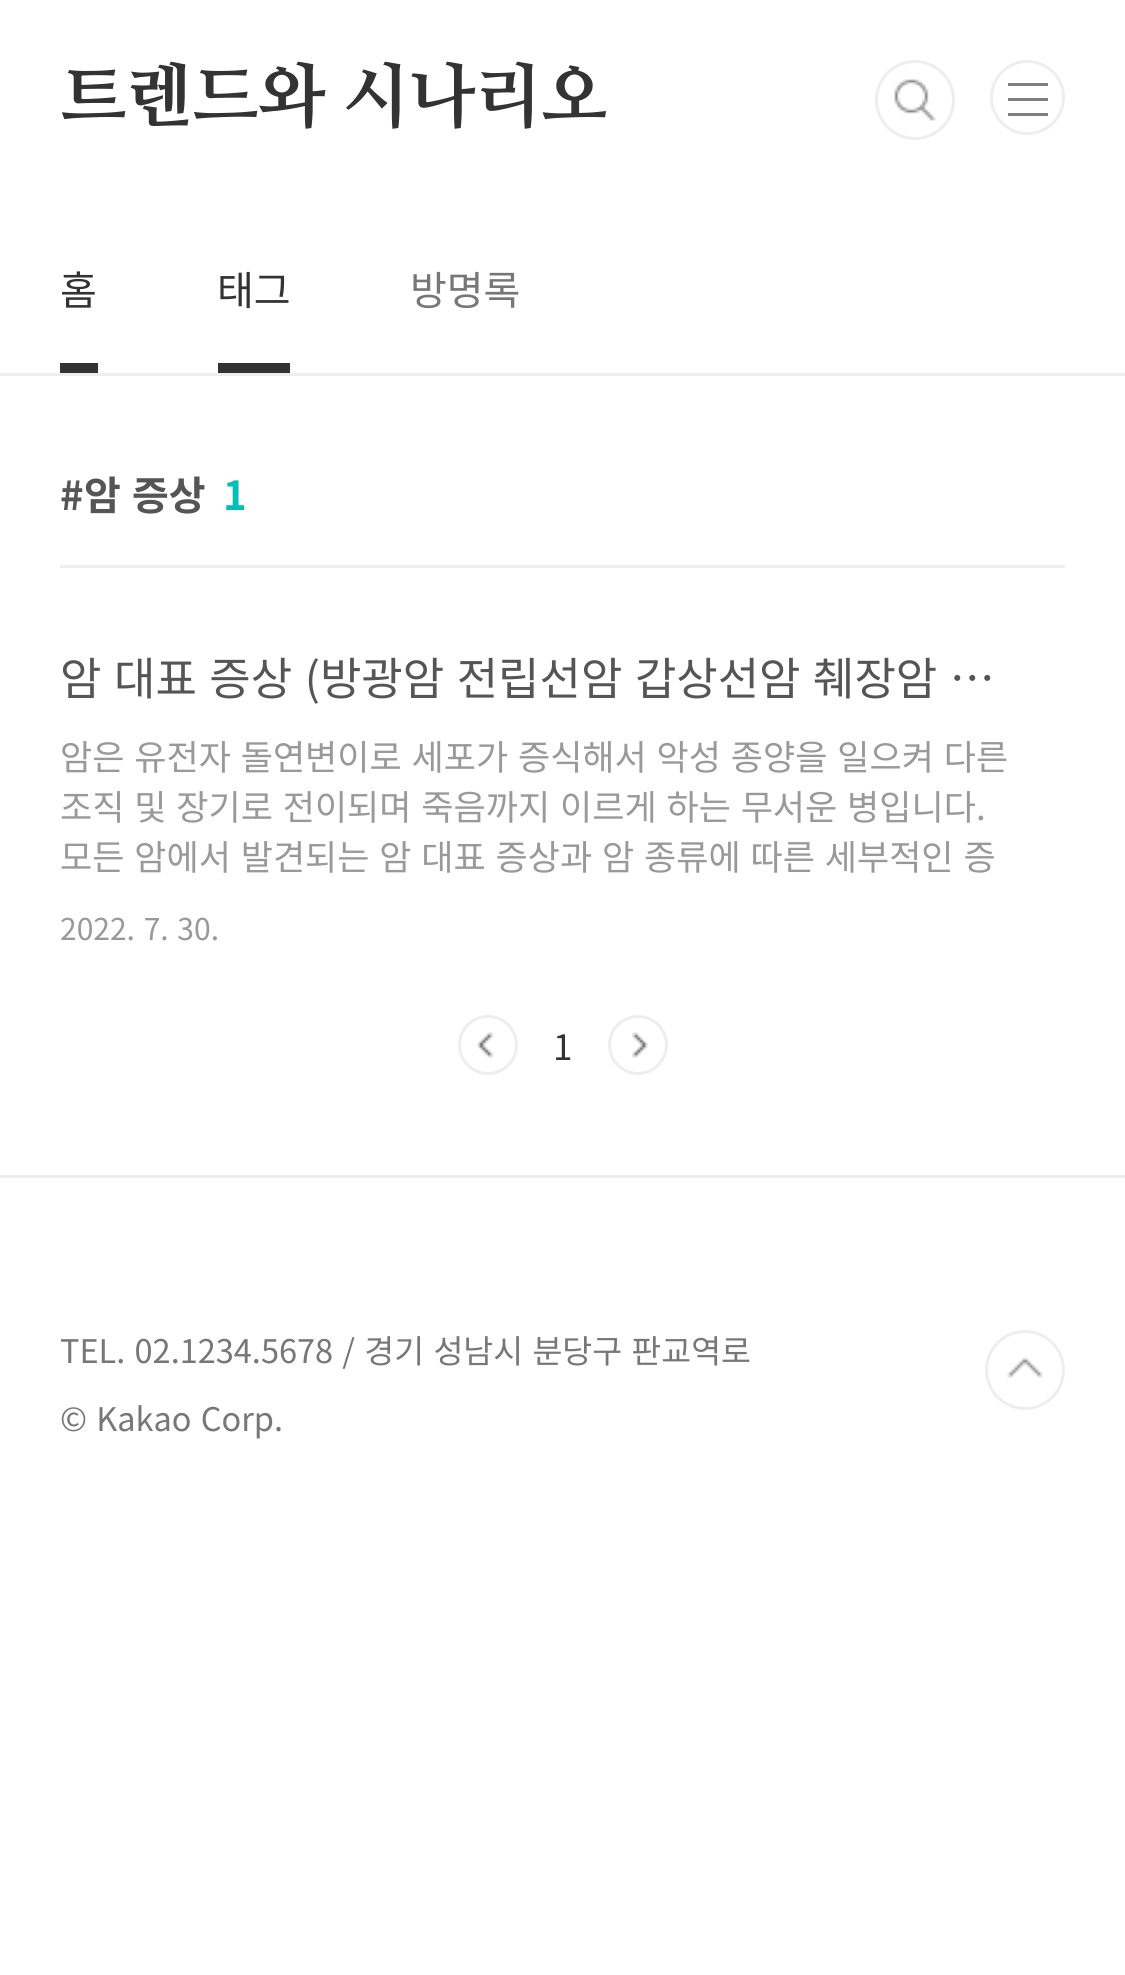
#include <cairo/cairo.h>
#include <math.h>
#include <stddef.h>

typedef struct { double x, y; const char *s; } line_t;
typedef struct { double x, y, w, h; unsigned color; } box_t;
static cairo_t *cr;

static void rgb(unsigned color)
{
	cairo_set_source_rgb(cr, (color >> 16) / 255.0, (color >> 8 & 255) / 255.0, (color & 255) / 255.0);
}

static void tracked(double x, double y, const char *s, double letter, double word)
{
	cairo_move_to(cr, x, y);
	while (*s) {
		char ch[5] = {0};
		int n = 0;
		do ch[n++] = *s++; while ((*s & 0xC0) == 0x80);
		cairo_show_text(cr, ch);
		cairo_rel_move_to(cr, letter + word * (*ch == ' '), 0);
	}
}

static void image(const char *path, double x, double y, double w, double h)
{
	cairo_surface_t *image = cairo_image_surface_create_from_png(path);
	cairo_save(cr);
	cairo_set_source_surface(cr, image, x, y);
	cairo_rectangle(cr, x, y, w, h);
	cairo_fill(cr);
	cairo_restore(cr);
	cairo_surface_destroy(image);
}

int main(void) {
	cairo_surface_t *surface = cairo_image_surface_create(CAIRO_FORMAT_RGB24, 1125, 1975);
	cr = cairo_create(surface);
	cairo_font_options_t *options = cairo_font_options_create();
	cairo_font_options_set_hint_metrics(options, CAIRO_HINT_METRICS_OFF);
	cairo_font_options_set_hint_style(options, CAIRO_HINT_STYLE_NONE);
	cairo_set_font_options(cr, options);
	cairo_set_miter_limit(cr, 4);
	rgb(0xffffff);
	cairo_paint(cr);
	rgb(0xeeeeee);
	cairo_rectangle(cr, 0, 373, 1125, 3);
	cairo_fill(cr);
	image("img/1.png", 894, 79, 42, 42);
	cairo_arc(cr, 915, 100, 38.5, 0, 2 * M_PI);
	cairo_set_line_width(cr, 3);
	cairo_stroke(cr);
	cairo_arc(cr, 1027.5, 97.5, 36, 0, 2 * M_PI);
	cairo_stroke(cr);
	{
		static const box_t items[] = {
			{1008, 83, 40, 3, 0x7f7f7f},
			{1008, 98, 40, 3, 0x7f7f7f},
			{1008, 113, 40, 3, 0x7f7f7f},
			{60, 363, 38, 10, 0x333333},
			{218, 363, 72, 10, 0x333333},
			{60, 565, 1005, 3, 0xeeeeee},
		};
		for (size_t i = 0; i < sizeof items / sizeof *items; i++) {
			rgb(items[i].color);
			cairo_rectangle(cr, items[i].x, items[i].y, items[i].w, items[i].h);
			cairo_fill(cr);
		}
	}
	image("img/2.png", 477, 1032, 17, 26);
	cairo_arc(cr, 488, 1045, 28.5, 0, 2 * M_PI);
	cairo_stroke(cr);
	image("img/3.png", 632, 1032, 16, 26);
	cairo_arc(cr, 638, 1045, 28.5, 0, 2 * M_PI);
	cairo_stroke(cr);
	cairo_rectangle(cr, 0, 1175, 1125, 3);
	cairo_fill(cr);
	image("img/4.png", 1007, 1357, 36, 22);
	cairo_arc(cr, 1025, 1370, 38.5, 0, 2 * M_PI);
	cairo_stroke(cr);
	cairo_select_font_face(cr, "NanumMyeongjo ExtraBold", CAIRO_FONT_SLANT_NORMAL, CAIRO_FONT_WEIGHT_NORMAL);
	cairo_set_font_size(cr, 70);
	rgb(0x333333);
	tracked(60, 120, "트렌드와 시나리오", -0.5, 0);
	cairo_select_font_face(cr, "Noto Sans KR", CAIRO_FONT_SLANT_NORMAL, CAIRO_FONT_WEIGHT_NORMAL);
	cairo_set_font_size(cr, 40);
	cairo_move_to(cr, 60, 305);
	cairo_show_text(cr, "홈");
	cairo_move_to(cr, 217, 305);
	cairo_show_text(cr, "태그");
	rgb(0x777777);
	cairo_move_to(cr, 410, 305);
	cairo_show_text(cr, "방명록");
	cairo_select_font_face(cr, "Noto Sans KR", CAIRO_FONT_SLANT_NORMAL, CAIRO_FONT_WEIGHT_BOLD);
	rgb(0x555555);
	cairo_move_to(cr, 60, 510);
	cairo_show_text(cr, "#");
	tracked(84, 510, "암 증상", 0, 2);
	rgb(0x04beb8);
	cairo_move_to(cr, 223, 510);
	cairo_show_text(cr, "1");
	cairo_select_font_face(cr, "Noto Sans KR", CAIRO_FONT_SLANT_NORMAL, CAIRO_FONT_WEIGHT_NORMAL);
	cairo_set_font_size(cr, 45);
	rgb(0x555555);
	tracked(60, 695, "암 대표 증상 (방광암 전립선암 갑상선암 췌장암 …", 0, 2.5);
	cairo_set_font_size(cr, 35);
	rgb(0x999999);
	{
		static const line_t items[] = {
			{60, 770, "암은 유전자 돌연변이로 세포가 증식해서 악성 종양을 일으켜 다른"},
			{60, 820, "조직 및 장기로 전이되며 죽음까지 이르게 하는 무서운 병입니다."},
			{60, 870, "모든 암에서 발견되는 암 대표 증상과 암 종류에 따른 세부적인 증"},
		};
		for (size_t i = 0; i < sizeof items / sizeof *items; i++) {
			tracked(items[i].x, items[i].y, items[i].s, 0, 2);
		}
	}
	cairo_set_font_size(cr, 30);
	tracked(60, 940, "2022. 7. 30.", 0, 2);
	cairo_set_font_size(cr, 35);
	rgb(0x333333);
	cairo_move_to(cr, 553, 1060);
	cairo_show_text(cr, "1");
	cairo_set_font_size(cr, 32.5);
	rgb(0x777777);
	tracked(60, 1363, "TEL. 02.1234.5678 / 경기 성남시 분당구 판교역로", 0, 2);
	tracked(60, 1431, "© Kakao Corp.", 0, 2);
	cairo_surface_write_to_png(surface, "page.png");
	cairo_font_options_destroy(options);
	cairo_destroy(cr);
	cairo_surface_destroy(surface);
	return 0;
}
